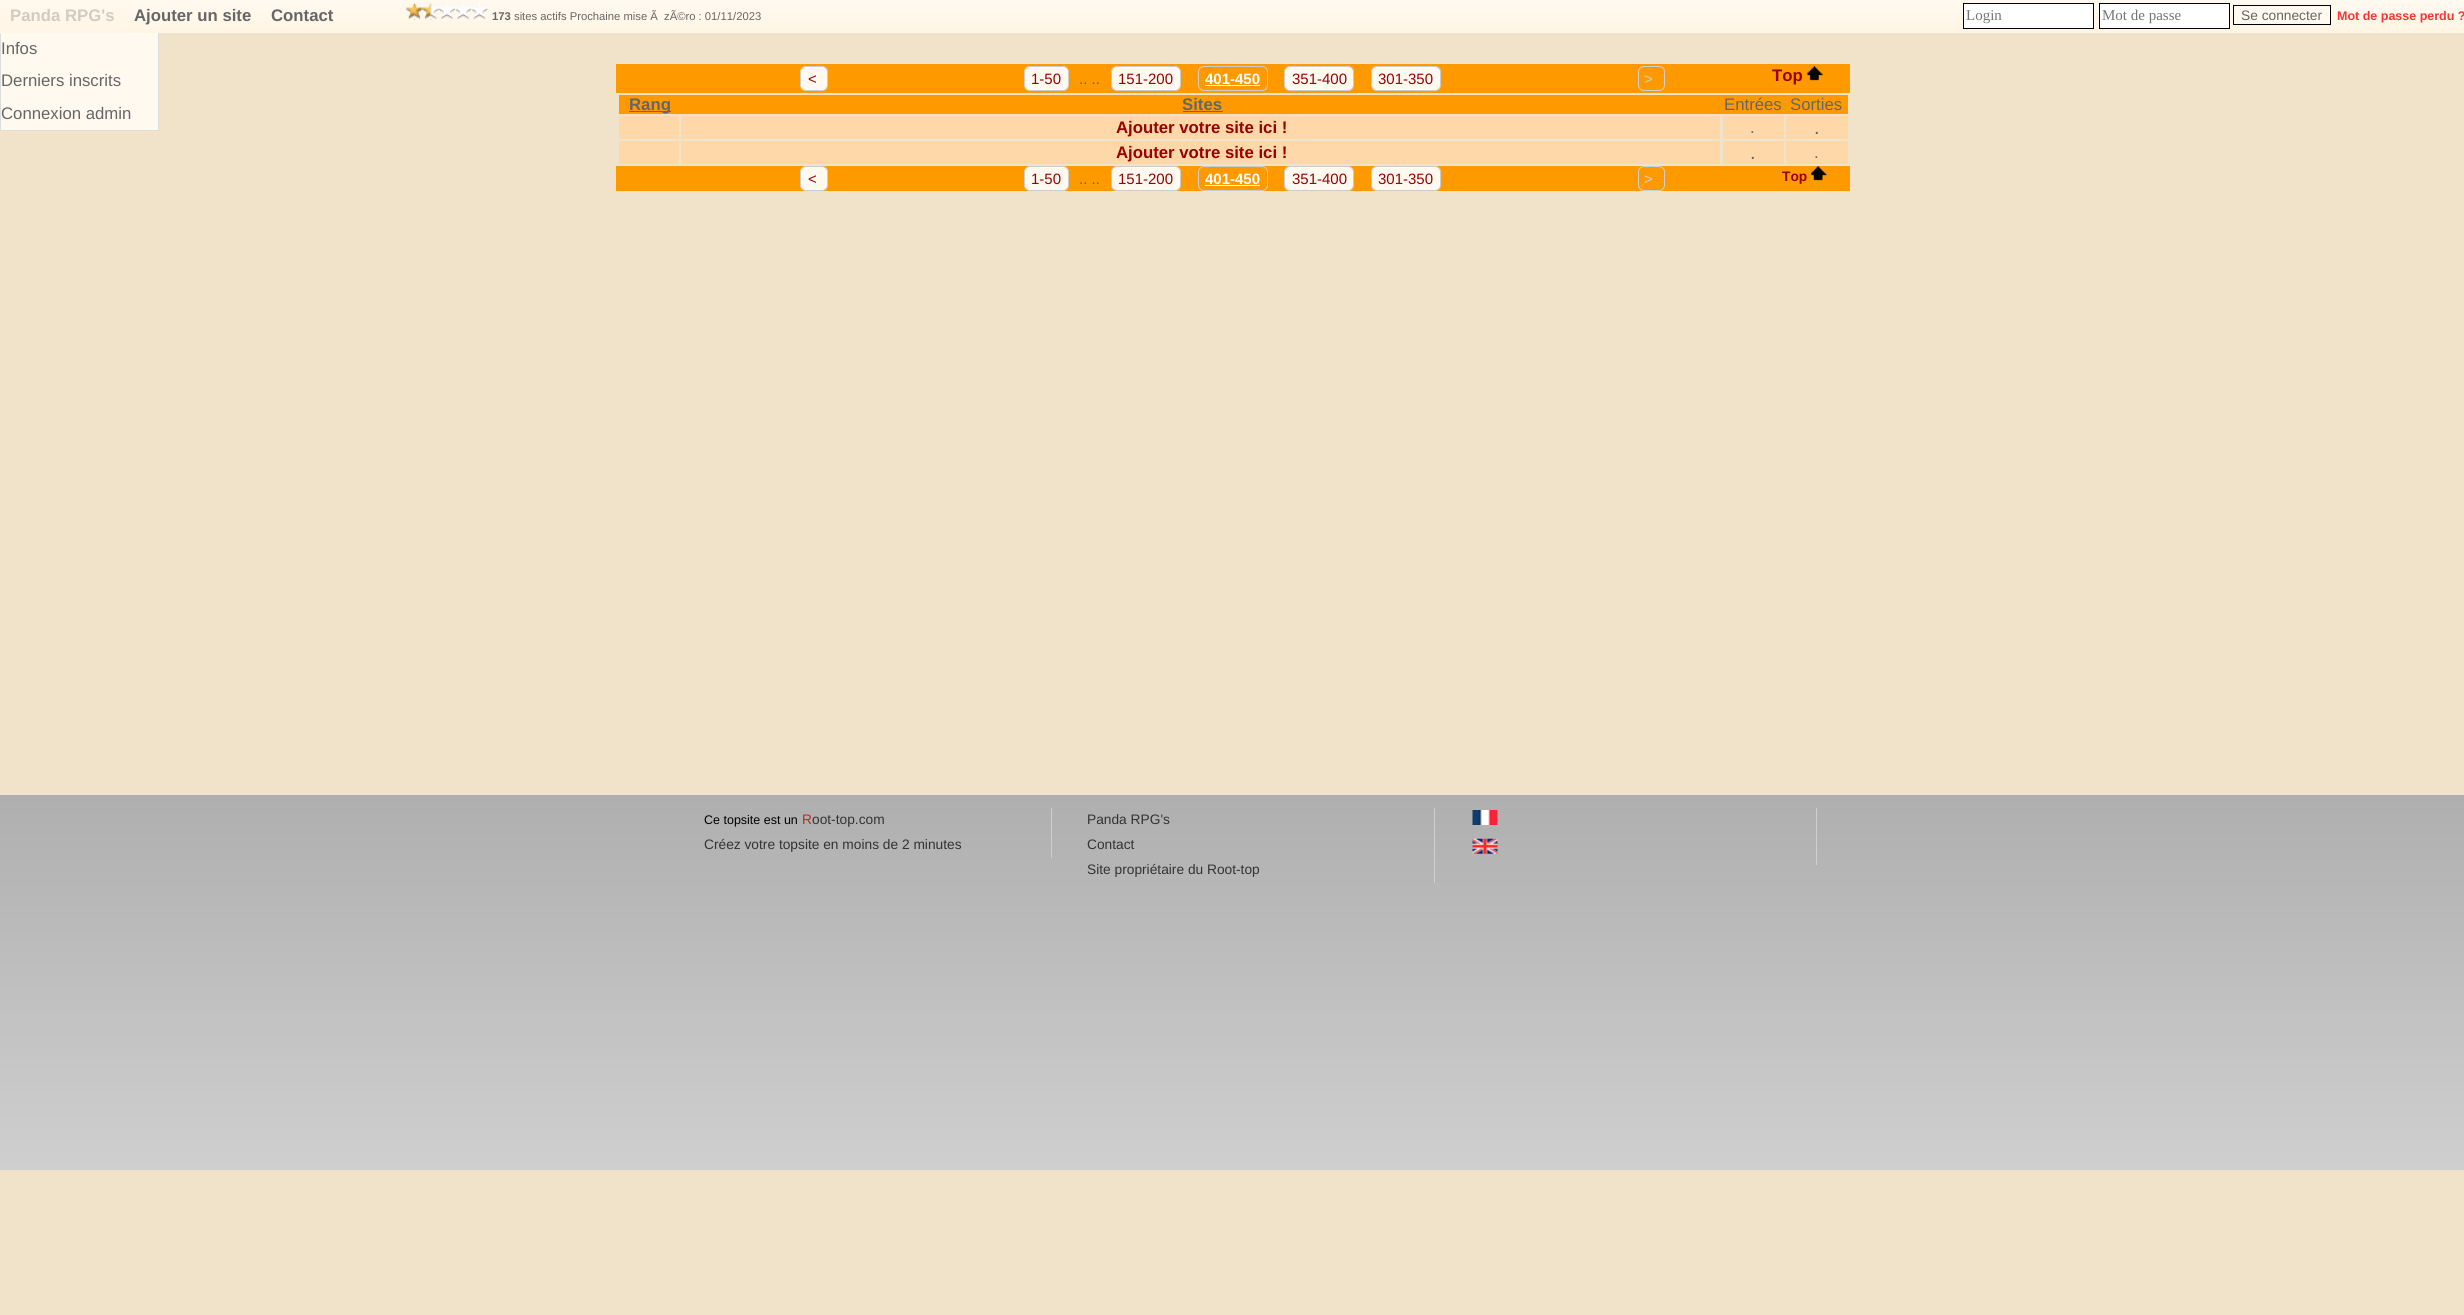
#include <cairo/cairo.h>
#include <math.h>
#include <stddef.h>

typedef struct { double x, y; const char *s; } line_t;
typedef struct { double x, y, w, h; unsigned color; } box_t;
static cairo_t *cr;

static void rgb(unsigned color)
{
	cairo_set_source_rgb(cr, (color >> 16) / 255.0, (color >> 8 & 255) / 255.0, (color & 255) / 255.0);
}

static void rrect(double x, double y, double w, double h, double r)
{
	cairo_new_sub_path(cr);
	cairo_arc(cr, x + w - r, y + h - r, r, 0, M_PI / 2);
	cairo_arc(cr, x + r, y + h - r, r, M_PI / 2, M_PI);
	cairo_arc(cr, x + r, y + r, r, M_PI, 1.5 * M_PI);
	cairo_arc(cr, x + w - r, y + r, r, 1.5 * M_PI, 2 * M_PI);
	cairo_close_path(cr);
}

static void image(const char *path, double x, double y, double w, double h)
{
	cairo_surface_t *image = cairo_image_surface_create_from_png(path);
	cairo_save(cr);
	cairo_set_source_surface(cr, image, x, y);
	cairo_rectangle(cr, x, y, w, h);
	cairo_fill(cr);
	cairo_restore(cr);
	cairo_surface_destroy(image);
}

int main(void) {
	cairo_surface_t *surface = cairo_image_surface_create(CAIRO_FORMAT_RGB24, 2464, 1315);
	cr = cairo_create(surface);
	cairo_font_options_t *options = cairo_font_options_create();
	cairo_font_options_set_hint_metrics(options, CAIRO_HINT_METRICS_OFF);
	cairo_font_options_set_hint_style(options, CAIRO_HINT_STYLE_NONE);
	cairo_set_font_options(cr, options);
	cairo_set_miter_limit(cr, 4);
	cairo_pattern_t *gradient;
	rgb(0xf0e3ca);
	cairo_paint(cr);
	gradient = cairo_pattern_create_linear(0, 0, 0, 33);
	cairo_pattern_add_color_stop_rgba(gradient, 0, 1, 0.976, 0.941, 1);
	cairo_pattern_add_color_stop_rgba(gradient, 1, 1, 0.961, 0.898, 1);
	cairo_set_source(cr, gradient);
	cairo_pattern_destroy(gradient);
	cairo_rectangle(cr, 824, 0, 1136, 33);
	cairo_fill(cr);
	gradient = cairo_pattern_create_linear(0, 0, 0, 33);
	cairo_pattern_add_color_stop_rgba(gradient, 0, 1, 0.973, 0.929, 1);
	cairo_pattern_add_color_stop_rgba(gradient, 1, 1, 0.961, 0.898, 1);
	cairo_set_source(cr, gradient);
	cairo_pattern_destroy(gradient);
	cairo_rectangle(cr, 0, 0, 124, 33);
	cairo_fill(cr);
	gradient = cairo_pattern_create_linear(0, 0, 0, 33);
	cairo_pattern_add_color_stop_rgba(gradient, 0, 1, 0.961, 0.898, 0.3);
	cairo_pattern_add_color_stop_rgba(gradient, 1, 1, 0.976, 0.941, 0.3);
	cairo_set_source(cr, gradient);
	cairo_pattern_destroy(gradient);
	cairo_rectangle(cr, 0, 31, 124, 2);
	cairo_fill(cr);
	{
		static const box_t items[] = {
			{158, 33, 1, 98, 0xdddddd},
			{0, 130, 159, 1, 0xdddddd},
			{0, 33, 1, 98, 0xdddddd},
			{0, 33, 1, 1, 0xeee9e1},
		};
		for (size_t i = 0; i < sizeof items / sizeof *items; i++) {
			rgb(items[i].color);
			cairo_rectangle(cr, items[i].x, items[i].y, items[i].w, items[i].h);
			cairo_fill(cr);
		}
	}
	gradient = cairo_pattern_create_linear(0, 33, 0, 65);
	cairo_pattern_add_color_stop_rgba(gradient, 0, 1, 0.961, 0.898, 0.3);
	cairo_pattern_add_color_stop_rgba(gradient, 1, 1, 0.973, 0.929, 0.3);
	cairo_set_source(cr, gradient);
	cairo_pattern_destroy(gradient);
	cairo_rectangle(cr, 0, 33, 1, 1);
	cairo_fill(cr);
	rgb(0xfff9f0);
	cairo_rectangle(cr, 1, 33, 157, 97);
	cairo_fill(cr);
	gradient = cairo_pattern_create_linear(124, 0, 124, 33);
	cairo_pattern_add_color_stop_rgba(gradient, 0, 1, 0.976, 0.941, 1);
	cairo_pattern_add_color_stop_rgba(gradient, 1, 1, 0.961, 0.898, 1);
	cairo_set_source(cr, gradient);
	cairo_pattern_destroy(gradient);
	cairo_rectangle(cr, 124, 0, 136, 33);
	cairo_fill(cr);
	gradient = cairo_pattern_create_linear(260, 0, 260, 33);
	cairo_pattern_add_color_stop_rgba(gradient, 0, 1, 0.976, 0.941, 1);
	cairo_pattern_add_color_stop_rgba(gradient, 1, 1, 0.961, 0.898, 1);
	cairo_set_source(cr, gradient);
	cairo_pattern_destroy(gradient);
	cairo_rectangle(cr, 260, 0, 83, 33);
	cairo_fill(cr);
	gradient = cairo_pattern_create_linear(343, 0, 343, 33);
	cairo_pattern_add_color_stop_rgba(gradient, 0, 1, 0.976, 0.941, 1);
	cairo_pattern_add_color_stop_rgba(gradient, 1, 1, 0.961, 0.898, 1);
	cairo_set_source(cr, gradient);
	cairo_pattern_destroy(gradient);
	cairo_rectangle(cr, 343, 0, 62, 33);
	cairo_fill(cr);
	gradient = cairo_pattern_create_linear(405, 0, 405, 33);
	cairo_pattern_add_color_stop_rgba(gradient, 0, 1, 0.976, 0.941, 1);
	cairo_pattern_add_color_stop_rgba(gradient, 1, 1, 0.961, 0.898, 1);
	cairo_set_source(cr, gradient);
	cairo_pattern_destroy(gradient);
	cairo_rectangle(cr, 405, 0, 356, 33);
	cairo_fill(cr);
	image("img/1.png", 406, 3, 82, 17);
	gradient = cairo_pattern_create_linear(761, 0, 761, 33);
	cairo_pattern_add_color_stop_rgba(gradient, 0, 1, 0.976, 0.941, 1);
	cairo_pattern_add_color_stop_rgba(gradient, 1, 1, 0.961, 0.898, 1);
	cairo_set_source(cr, gradient);
	cairo_pattern_destroy(gradient);
	cairo_rectangle(cr, 761, 0, 63, 33);
	cairo_fill(cr);
	gradient = cairo_pattern_create_linear(1960, 0, 1960, 33);
	cairo_pattern_add_color_stop_rgba(gradient, 0, 1, 0.976, 0.941, 1);
	cairo_pattern_add_color_stop_rgba(gradient, 1, 1, 0.961, 0.898, 1);
	cairo_set_source(cr, gradient);
	cairo_pattern_destroy(gradient);
	cairo_rectangle(cr, 1960, 0, 504, 33);
	cairo_fill(cr);
	rgb(0xffffff);
	cairo_rectangle(cr, 1963.5, 3.5, 130, 25);
	cairo_fill_preserve(cr);
	rgb(0x000000);
	cairo_set_line_width(cr, 1);
	cairo_stroke(cr);
	rgb(0xffffff);
	cairo_rectangle(cr, 2099.5, 3.5, 130, 25);
	cairo_fill_preserve(cr);
	rgb(0x000000);
	cairo_stroke(cr);
	rgb(0xfff9f0);
	cairo_rectangle(cr, 2234, 8, 96, 16);
	cairo_fill(cr);
	cairo_rectangle(cr, 2233.5, 5.5, 97, 19);
	rgb(0x000000);
	cairo_stroke(cr);
	rgb(0xff9900);
	cairo_rectangle(cr, 616, 64, 1234, 29);
	cairo_fill(cr);
	rgb(0xfff9f0);
	rrect(800.5, 66.5, 27, 24, 5.5);
	cairo_fill_preserve(cr);
	rgb(0xcccccc);
	cairo_stroke(cr);
	rgb(0xfff9f0);
	rrect(1024.5, 66.5, 44, 24, 5.5);
	cairo_fill_preserve(cr);
	rgb(0xcccccc);
	cairo_stroke(cr);
	rgb(0xfff9f0);
	rrect(1111.5, 66.5, 69, 24, 5.5);
	cairo_fill_preserve(cr);
	rgb(0xcccccc);
	cairo_stroke(cr);
	rrect(1198.5, 66.5, 69, 24, 5.5);
	cairo_stroke(cr);
	rgb(0xffffff);
	cairo_rectangle(cr, 1205, 85, 55, 1);
	cairo_fill(cr);
	rgb(0xfff9f0);
	rrect(1284.5, 66.5, 69, 24, 5.5);
	cairo_fill_preserve(cr);
	rgb(0xcccccc);
	cairo_stroke(cr);
	rgb(0xfff9f0);
	rrect(1371.5, 66.5, 69, 24, 5.5);
	cairo_fill_preserve(cr);
	rgb(0xcccccc);
	cairo_stroke(cr);
	rrect(1638.5, 66.5, 26, 24, 5.5);
	rgb(0xcfcfcf);
	cairo_stroke(cr);
	image("img/2.png", 1807, 66, 16, 15);
	{
		static const box_t items[] = {
			{619, 95, 1229, 19, 0xff9900},
			{629, 111, 42, 1, 0x666666},
			{1183, 111, 40, 1, 0x666666},
			{619, 116, 60, 23, 0xffd8a9},
			{681, 116, 1039, 23, 0xffd8a9},
			{1723, 116, 61, 23, 0xffd8a9},
			{1786, 116, 62, 23, 0xffd8a9},
			{619, 141, 60, 23, 0xffd8a9},
			{681, 141, 1039, 23, 0xffd8a9},
			{1723, 141, 61, 23, 0xffd8a9},
			{1786, 141, 62, 23, 0xffd8a9},
			{616, 166, 1234, 25, 0xff9900},
		};
		for (size_t i = 0; i < sizeof items / sizeof *items; i++) {
			rgb(items[i].color);
			cairo_rectangle(cr, items[i].x, items[i].y, items[i].w, items[i].h);
			cairo_fill(cr);
		}
	}
	rgb(0xfff9f0);
	rrect(800.5, 166.5, 27, 24, 5.5);
	cairo_fill_preserve(cr);
	rgb(0xcccccc);
	cairo_stroke(cr);
	rgb(0xfff9f0);
	rrect(1024.5, 166.5, 44, 24, 5.5);
	cairo_fill_preserve(cr);
	rgb(0xcccccc);
	cairo_stroke(cr);
	rgb(0xfff9f0);
	rrect(1111.5, 166.5, 69, 24, 5.5);
	cairo_fill_preserve(cr);
	rgb(0xcccccc);
	cairo_stroke(cr);
	rrect(1198.5, 166.5, 69, 24, 5.5);
	cairo_stroke(cr);
	rgb(0xffffff);
	cairo_rectangle(cr, 1205, 185, 55, 1);
	cairo_fill(cr);
	rgb(0xfff9f0);
	rrect(1284.5, 166.5, 69, 24, 5.5);
	cairo_fill_preserve(cr);
	rgb(0xcccccc);
	cairo_stroke(cr);
	rgb(0xfff9f0);
	rrect(1371.5, 166.5, 69, 24, 5.5);
	cairo_fill_preserve(cr);
	rgb(0xcccccc);
	cairo_stroke(cr);
	rrect(1638.5, 166.5, 26, 24, 5.5);
	rgb(0xcfcfcf);
	cairo_stroke(cr);
	image("img/3.png", 1811, 166, 16, 15);
	gradient = cairo_pattern_create_linear(0, 795, 0, 1170);
	cairo_pattern_add_color_stop_rgba(gradient, 0, 0.686, 0.686, 0.686, 1);
	cairo_pattern_add_color_stop_rgba(gradient, 1, 0.812, 0.812, 0.812, 1);
	cairo_set_source(cr, gradient);
	cairo_pattern_destroy(gradient);
	cairo_rectangle(cr, 0, 795, 2464, 375);
	cairo_fill(cr);
	{
		static const box_t items[] = {
			{1051, 808, 1, 50, 0xcfcfcf},
			{1434, 808, 1, 75, 0xcfcfcf},
			{1816, 808, 1, 57, 0xcfcfcf},
		};
		for (size_t i = 0; i < sizeof items / sizeof *items; i++) {
			rgb(items[i].color);
			cairo_rectangle(cr, items[i].x, items[i].y, items[i].w, items[i].h);
			cairo_fill(cr);
		}
	}
	image("img/4.png", 1472, 810, 26, 15);
	image("img/5.png", 1472, 838, 26, 16);
	cairo_select_font_face(cr, "Liberation Sans", CAIRO_FONT_SLANT_NORMAL, CAIRO_FONT_WEIGHT_BOLD);
	cairo_set_font_size(cr, 16.75);
	rgb(0xd1cbc2);
	cairo_move_to(cr, 10, 21);
	cairo_show_text(cr, "Panda RPG's");
	cairo_select_font_face(cr, "Liberation Sans", CAIRO_FONT_SLANT_NORMAL, CAIRO_FONT_WEIGHT_NORMAL);
	rgb(0x666666);
	{
		static const line_t items[] = {
			{1, 54, "Infos"},
			{1, 86, "Derniers inscrits"},
			{1, 119, "Connexion admin"},
		};
		for (size_t i = 0; i < sizeof items / sizeof *items; i++) {
			cairo_move_to(cr, items[i].x, items[i].y);
			cairo_show_text(cr, items[i].s);
		}
	}
	cairo_select_font_face(cr, "Liberation Sans", CAIRO_FONT_SLANT_NORMAL, CAIRO_FONT_WEIGHT_BOLD);
	cairo_move_to(cr, 134, 21);
	cairo_show_text(cr, "Ajouter un site");
	cairo_move_to(cr, 271, 21);
	cairo_show_text(cr, "Contact");
	cairo_set_font_size(cr, 11.25);
	cairo_move_to(cr, 492, 20);
	cairo_show_text(cr, "173");
	cairo_select_font_face(cr, "Liberation Sans", CAIRO_FONT_SLANT_NORMAL, CAIRO_FONT_WEIGHT_NORMAL);
	cairo_move_to(cr, 514, 20);
	cairo_show_text(cr, "sites actifs Prochaine mise Ã  zÃ©ro : 01/11/2023");
	cairo_select_font_face(cr, "Liberation Serif", CAIRO_FONT_SLANT_NORMAL, CAIRO_FONT_WEIGHT_NORMAL);
	cairo_set_font_size(cr, 15);
	rgb(0x757575);
	cairo_move_to(cr, 1966, 20);
	cairo_show_text(cr, "Login");
	cairo_move_to(cr, 2102, 20);
	cairo_show_text(cr, "Mot de passe");
	cairo_select_font_face(cr, "Liberation Sans", CAIRO_FONT_SLANT_NORMAL, CAIRO_FONT_WEIGHT_NORMAL);
	cairo_set_font_size(cr, 13.75);
	rgb(0x666666);
	cairo_move_to(cr, 2241, 20);
	cairo_show_text(cr, "Se connecter");
	cairo_select_font_face(cr, "Liberation Sans", CAIRO_FONT_SLANT_NORMAL, CAIRO_FONT_WEIGHT_BOLD);
	cairo_set_font_size(cr, 12.5);
	rgb(0xff3333);
	cairo_move_to(cr, 2337, 20);
	cairo_show_text(cr, "Mot de passe perdu ?");
	cairo_select_font_face(cr, "Liberation Sans", CAIRO_FONT_SLANT_NORMAL, CAIRO_FONT_WEIGHT_NORMAL);
	cairo_set_font_size(cr, 15);
	rgb(0x990000);
	cairo_move_to(cr, 808, 84);
	cairo_show_text(cr, "<");
	cairo_move_to(cr, 1031, 84);
	cairo_show_text(cr, "1-50");
	rgb(0x666666);
	cairo_move_to(cr, 1079, 84);
	cairo_show_text(cr, ".. ..");
	rgb(0x990000);
	cairo_move_to(cr, 1118, 84);
	cairo_show_text(cr, "151-200");
	cairo_select_font_face(cr, "Liberation Sans", CAIRO_FONT_SLANT_NORMAL, CAIRO_FONT_WEIGHT_BOLD);
	rgb(0xffffff);
	cairo_move_to(cr, 1205, 84);
	cairo_show_text(cr, "401-450");
	cairo_select_font_face(cr, "Liberation Sans", CAIRO_FONT_SLANT_NORMAL, CAIRO_FONT_WEIGHT_NORMAL);
	rgb(0x990000);
	cairo_move_to(cr, 1292, 84);
	cairo_show_text(cr, "351-400");
	cairo_move_to(cr, 1378, 84);
	cairo_show_text(cr, "301-350");
	rgb(0xcfcfcf);
	cairo_move_to(cr, 1644, 84);
	cairo_show_text(cr, ">");
	cairo_select_font_face(cr, "Liberation Sans", CAIRO_FONT_SLANT_NORMAL, CAIRO_FONT_WEIGHT_BOLD);
	cairo_set_font_size(cr, 16.75);
	rgb(0x990000);
	cairo_move_to(cr, 1772, 81);
	cairo_show_text(cr, "Top");
	rgb(0x666666);
	cairo_move_to(cr, 629, 110);
	cairo_show_text(cr, "Rang");
	cairo_move_to(cr, 1182, 110);
	cairo_show_text(cr, "Sites");
	cairo_select_font_face(cr, "Liberation Sans", CAIRO_FONT_SLANT_NORMAL, CAIRO_FONT_WEIGHT_NORMAL);
	cairo_move_to(cr, 1724, 110);
	cairo_show_text(cr, "Entrées");
	cairo_move_to(cr, 1790, 110);
	cairo_show_text(cr, "Sorties");
	cairo_select_font_face(cr, "Liberation Sans", CAIRO_FONT_SLANT_NORMAL, CAIRO_FONT_WEIGHT_BOLD);
	rgb(0x990000);
	cairo_move_to(cr, 1116, 133);
	cairo_show_text(cr, "Ajouter votre site ici !");
	cairo_select_font_face(cr, "Liberation Sans", CAIRO_FONT_SLANT_NORMAL, CAIRO_FONT_WEIGHT_NORMAL);
	rgb(0x666666);
	cairo_move_to(cr, 1750, 133);
	cairo_show_text(cr, ".");
	cairo_set_font_size(cr, 20);
	cairo_move_to(cr, 1814, 134);
	cairo_show_text(cr, ".");
	cairo_select_font_face(cr, "Liberation Sans", CAIRO_FONT_SLANT_NORMAL, CAIRO_FONT_WEIGHT_BOLD);
	cairo_set_font_size(cr, 16.75);
	rgb(0x990000);
	cairo_move_to(cr, 1116, 158);
	cairo_show_text(cr, "Ajouter votre site ici !");
	cairo_select_font_face(cr, "Liberation Sans", CAIRO_FONT_SLANT_NORMAL, CAIRO_FONT_WEIGHT_NORMAL);
	cairo_set_font_size(cr, 20);
	rgb(0x666666);
	cairo_move_to(cr, 1750, 159);
	cairo_show_text(cr, ".");
	cairo_set_font_size(cr, 16.75);
	cairo_move_to(cr, 1814, 158);
	cairo_show_text(cr, ".");
	cairo_set_font_size(cr, 15);
	rgb(0x990000);
	cairo_move_to(cr, 808, 184);
	cairo_show_text(cr, "<");
	cairo_move_to(cr, 1031, 184);
	cairo_show_text(cr, "1-50");
	rgb(0x666666);
	cairo_move_to(cr, 1079, 184);
	cairo_show_text(cr, ".. ..");
	rgb(0x990000);
	cairo_move_to(cr, 1118, 184);
	cairo_show_text(cr, "151-200");
	cairo_select_font_face(cr, "Liberation Sans", CAIRO_FONT_SLANT_NORMAL, CAIRO_FONT_WEIGHT_BOLD);
	rgb(0xffffff);
	cairo_move_to(cr, 1205, 184);
	cairo_show_text(cr, "401-450");
	cairo_select_font_face(cr, "Liberation Sans", CAIRO_FONT_SLANT_NORMAL, CAIRO_FONT_WEIGHT_NORMAL);
	rgb(0x990000);
	cairo_move_to(cr, 1292, 184);
	cairo_show_text(cr, "351-400");
	cairo_move_to(cr, 1378, 184);
	cairo_show_text(cr, "301-350");
	rgb(0xcfcfcf);
	cairo_move_to(cr, 1644, 184);
	cairo_show_text(cr, ">");
	cairo_select_font_face(cr, "Liberation Sans", CAIRO_FONT_SLANT_NORMAL, CAIRO_FONT_WEIGHT_BOLD);
	cairo_set_font_size(cr, 13.75);
	rgb(0x990000);
	cairo_move_to(cr, 1782, 181);
	cairo_show_text(cr, "Top");
	cairo_select_font_face(cr, "Liberation Sans", CAIRO_FONT_SLANT_NORMAL, CAIRO_FONT_WEIGHT_NORMAL);
	cairo_set_font_size(cr, 12.5);
	rgb(0x000000);
	cairo_move_to(cr, 704, 824);
	cairo_show_text(cr, "Ce topsite est un");
	cairo_set_font_size(cr, 13.75);
	rgb(0xcc2222);
	cairo_move_to(cr, 802, 824);
	cairo_show_text(cr, "R");
	rgb(0x333333);
	{
		static const line_t items[] = {
			{812, 824, "oot-top.com"},
			{704, 849, "Créez votre topsite en moins de 2 minutes"},
			{1087, 824, "Panda RPG's"},
			{1087, 849, "Contact"},
			{1087, 874, "Site propriétaire du Root-top"},
		};
		for (size_t i = 0; i < sizeof items / sizeof *items; i++) {
			cairo_move_to(cr, items[i].x, items[i].y);
			cairo_show_text(cr, items[i].s);
		}
	}
	cairo_surface_write_to_png(surface, "page.png");
	cairo_font_options_destroy(options);
	cairo_destroy(cr);
	cairo_surface_destroy(surface);
	return 0;
}
